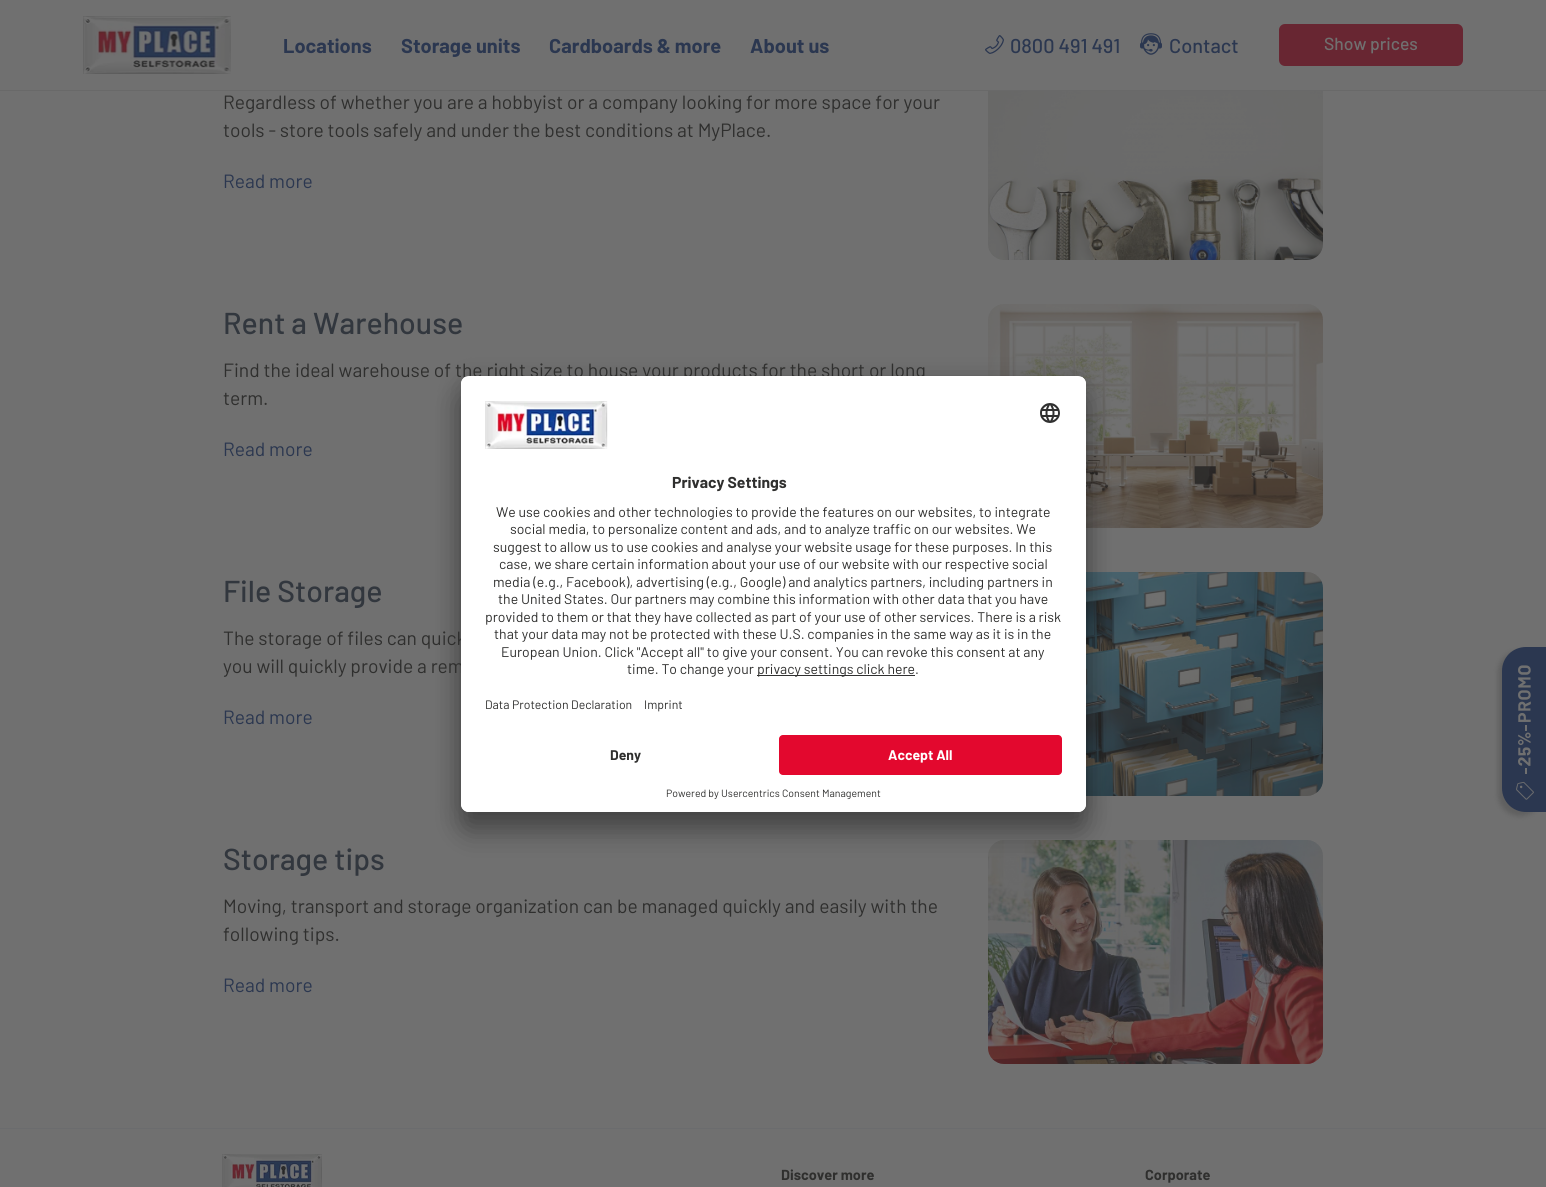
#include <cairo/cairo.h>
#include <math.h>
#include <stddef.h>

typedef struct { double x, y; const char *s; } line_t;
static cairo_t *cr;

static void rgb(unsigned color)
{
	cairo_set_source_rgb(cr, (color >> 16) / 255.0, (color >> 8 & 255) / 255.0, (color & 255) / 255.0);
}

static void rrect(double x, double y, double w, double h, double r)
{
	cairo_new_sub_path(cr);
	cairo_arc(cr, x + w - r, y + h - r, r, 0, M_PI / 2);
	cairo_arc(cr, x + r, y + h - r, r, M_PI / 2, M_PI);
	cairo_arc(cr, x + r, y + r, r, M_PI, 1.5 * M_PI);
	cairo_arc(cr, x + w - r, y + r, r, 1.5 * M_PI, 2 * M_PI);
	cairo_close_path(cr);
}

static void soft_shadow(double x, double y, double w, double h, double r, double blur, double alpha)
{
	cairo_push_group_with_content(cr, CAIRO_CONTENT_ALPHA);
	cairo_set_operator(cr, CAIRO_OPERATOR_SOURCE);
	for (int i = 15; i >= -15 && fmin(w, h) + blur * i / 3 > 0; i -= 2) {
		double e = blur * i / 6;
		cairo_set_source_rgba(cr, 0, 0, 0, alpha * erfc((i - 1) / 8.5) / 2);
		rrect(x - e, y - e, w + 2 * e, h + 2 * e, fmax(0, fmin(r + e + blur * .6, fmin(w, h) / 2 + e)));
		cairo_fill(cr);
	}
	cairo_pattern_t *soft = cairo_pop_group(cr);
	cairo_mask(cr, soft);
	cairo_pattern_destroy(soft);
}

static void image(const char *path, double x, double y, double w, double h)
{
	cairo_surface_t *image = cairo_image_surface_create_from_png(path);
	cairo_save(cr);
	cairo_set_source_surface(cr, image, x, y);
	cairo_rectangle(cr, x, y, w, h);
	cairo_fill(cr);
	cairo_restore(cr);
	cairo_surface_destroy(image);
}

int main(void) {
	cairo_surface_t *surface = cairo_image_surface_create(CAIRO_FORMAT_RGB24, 1546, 1187);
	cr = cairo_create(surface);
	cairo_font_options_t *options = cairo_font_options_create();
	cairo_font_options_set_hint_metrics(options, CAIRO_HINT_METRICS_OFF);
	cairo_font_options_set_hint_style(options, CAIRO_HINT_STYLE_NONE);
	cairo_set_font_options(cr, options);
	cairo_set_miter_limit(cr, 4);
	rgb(0x707070);
	cairo_paint(cr);
	rgb(0x696969);
	cairo_rectangle(cr, 0, 90, 1546, 1);
	cairo_fill(cr);
	image("img/1.png", 83, 16, 148, 58);
	image("img/2.png", 985, 35, 19, 19);
	image("img/3.png", 1140, 33, 22, 22);
	rgb(0x682632);
	rrect(1279, 24, 184, 42, 6);
	cairo_fill(cr);
	image("img/4.png", 988, 91, 335, 169);
	image("img/5.png", 988, 304, 335, 224);
	image("img/6.png", 1086, 572, 237, 224);
	image("img/7.png", 988, 840, 335, 224);
	rgb(0x6b6c6e);
	cairo_rectangle(cr, 0, 1128, 1546, 1);
	cairo_fill(cr);
	image("img/8.png", 222, 1154, 100, 33);
	rgb(0x000000);
	soft_shadow(461, 396, 625, 436, 8, 14, 0.3);
	soft_shadow(461, 381, 625, 436, 8, 13, 0.22);
	rgb(0x242424);
	soft_shadow(1498, 651, 44, 165, 24, 2.5, 0.22);
	rgb(0x2b3750);
	cairo_new_path(cr);
	cairo_move_to(cr, 1526, 647);
	cairo_line_to(cr, 1546, 647);
	cairo_line_to(cr, 1546, 812);
	cairo_line_to(cr, 1526, 812);
	cairo_curve_to(cr, 1512.5, 812, 1502, 801.5, 1502, 788);
	cairo_line_to(cr, 1502, 671);
	cairo_curve_to(cr, 1502, 657.5, 1512.5, 647, 1526, 647);
	cairo_close_path(cr);
	cairo_fill(cr);
	image("img/11.png", 1516, 665, 18, 135);
	cairo_select_font_face(cr, "Barlow", CAIRO_FONT_SLANT_NORMAL, CAIRO_FONT_WEIGHT_BOLD);
	cairo_set_font_size(cr, 20);
	{
		static const line_t items[] = {
			{283, 53, "Locations"},
			{401, 53, "Storage units"},
			{549, 53, "Cardboards & more"},
			{750, 53, "About us"},
		};
		for (size_t i = 0; i < sizeof items / sizeof *items; i++) {
			cairo_move_to(cr, items[i].x, items[i].y);
			cairo_show_text(cr, items[i].s);
		}
	}
	cairo_select_font_face(cr, "Barlow Medium", CAIRO_FONT_SLANT_NORMAL, CAIRO_FONT_WEIGHT_NORMAL);
	cairo_move_to(cr, 1010, 53);
	cairo_show_text(cr, "0800 491 491");
	cairo_move_to(cr, 1169, 53);
	cairo_show_text(cr, "Contact");
	cairo_set_font_size(cr, 17.5);
	rgb(0x707070);
	cairo_move_to(cr, 1324, 50);
	cairo_show_text(cr, "Show prices");
	cairo_select_font_face(cr, "Barlow", CAIRO_FONT_SLANT_NORMAL, CAIRO_FONT_WEIGHT_NORMAL);
	cairo_set_font_size(cr, 19.2);
	rgb(0x2f2f2e);
	cairo_move_to(cr, 223, 109);
	cairo_show_text(cr, "Regardless of whether you are a hobbyist or a company looking for more space for your");
	cairo_move_to(cr, 223, 137);
	cairo_show_text(cr, "tools - store tools safely and under the best conditions at MyPlace.");
	rgb(0x2b3750);
	cairo_move_to(cr, 223, 188);
	cairo_show_text(cr, "Read more");
	cairo_select_font_face(cr, "Barlow Medium", CAIRO_FONT_SLANT_NORMAL, CAIRO_FONT_WEIGHT_NORMAL);
	cairo_set_font_size(cr, 30.25);
	rgb(0x32373e);
	cairo_move_to(cr, 223, 334);
	cairo_show_text(cr, "Rent a Warehouse");
	cairo_select_font_face(cr, "Barlow", CAIRO_FONT_SLANT_NORMAL, CAIRO_FONT_WEIGHT_NORMAL);
	cairo_set_font_size(cr, 19.2);
	rgb(0x2f2f2e);
	cairo_move_to(cr, 223, 377);
	cairo_show_text(cr, "Find the ideal warehouse of the right size to house your products for the short or long");
	cairo_move_to(cr, 223, 405);
	cairo_show_text(cr, "term.");
	rgb(0x2b3750);
	cairo_move_to(cr, 223, 456);
	cairo_show_text(cr, "Read more");
	cairo_select_font_face(cr, "Barlow Medium", CAIRO_FONT_SLANT_NORMAL, CAIRO_FONT_WEIGHT_NORMAL);
	cairo_set_font_size(cr, 30.25);
	rgb(0x32373e);
	cairo_move_to(cr, 223, 602);
	cairo_show_text(cr, "File Storage");
	cairo_select_font_face(cr, "Barlow", CAIRO_FONT_SLANT_NORMAL, CAIRO_FONT_WEIGHT_NORMAL);
	cairo_set_font_size(cr, 19.2);
	rgb(0x2f2f2e);
	cairo_move_to(cr, 223, 645);
	cairo_show_text(cr, "The storage of files can quick");
	cairo_move_to(cr, 223, 673);
	cairo_show_text(cr, "you will quickly provide a rem");
	rgb(0x2b3750);
	cairo_move_to(cr, 223, 724);
	cairo_show_text(cr, "Read more");
	cairo_select_font_face(cr, "Barlow Medium", CAIRO_FONT_SLANT_NORMAL, CAIRO_FONT_WEIGHT_NORMAL);
	cairo_set_font_size(cr, 30.25);
	rgb(0x32373e);
	cairo_move_to(cr, 223, 870);
	cairo_show_text(cr, "Storage tips");
	cairo_select_font_face(cr, "Barlow", CAIRO_FONT_SLANT_NORMAL, CAIRO_FONT_WEIGHT_NORMAL);
	cairo_set_font_size(cr, 19.2);
	rgb(0x2f2f2e);
	cairo_move_to(cr, 223, 913);
	cairo_show_text(cr, "Moving, transport and storage organization can be managed quickly and easily with the");
	cairo_move_to(cr, 223, 941);
	cairo_show_text(cr, "following tips.");
	rgb(0x2b3750);
	cairo_move_to(cr, 223, 992);
	cairo_show_text(cr, "Read more");
	cairo_select_font_face(cr, "Barlow", CAIRO_FONT_SLANT_NORMAL, CAIRO_FONT_WEIGHT_BOLD);
	cairo_set_font_size(cr, 14.5);
	rgb(0x2f2f2e);
	cairo_move_to(cr, 781, 1180);
	cairo_show_text(cr, "Discover more");
	cairo_move_to(cr, 1145, 1180);
	cairo_show_text(cr, "Corporate");
	rgb(0xffffff);
	rrect(461, 376, 625, 436, 8);
	cairo_fill(cr);
	cairo_save(cr);
	rrect(461, 376, 625, 436, 8);
	cairo_clip(cr);
	cairo_new_path(cr);
	cairo_move_to(cr, 469, 376);
	cairo_line_to(cr, 1078, 376);
	cairo_curve_to(cr, 1082.5, 376, 1086, 379.5, 1086, 384);
	cairo_line_to(cr, 1086, 727);
	cairo_line_to(cr, 461, 727);
	cairo_line_to(cr, 461, 384);
	cairo_curve_to(cr, 461, 379.5, 464.5, 376, 469, 376);
	cairo_close_path(cr);
	cairo_clip(cr);
	cairo_rectangle(cr, 461, 377, 625, 350);
	cairo_fill(cr);
	cairo_restore(cr);
	image("img/9.png", 485, 401, 123, 48);
	image("img/10.png", 1040, 403, 20, 20);
	cairo_set_font_size(cr, 15.75);
	rgb(0x2f2f2e);
	cairo_move_to(cr, 672, 488);
	cairo_show_text(cr, "Privacy Settings");
	cairo_select_font_face(cr, "Barlow", CAIRO_FONT_SLANT_NORMAL, CAIRO_FONT_WEIGHT_NORMAL);
	cairo_set_font_size(cr, 14);
	{
		static const line_t items[] = {
			{496, 517, "We use cookies and other technologies to provide the features on our websites, to integrate"},
			{510, 534, "social media, to personalize content and ads, and to analyze traffic on our websites. We"},
			{493, 552, "suggest to allow us to use cookies and analyse your website usage for these purposes. In this"},
			{499, 569, "case, we share certain information about your use of our website with our respective social"},
			{493, 587, "media (e.g., Facebook), advertising (e.g., Google) and analytics partners, including partners in"},
			{498, 604, "the United States. Our partners may combine this information with other data that you have"},
			{485, 622, "provided to them or that they have collected as part of your use of other services. There is a risk"},
			{494, 639, "that your data may not be protected with these U.S. companies in the same way as it is in the"},
			{501, 657, "European Union. Click \"Accept all\" to give your consent. You can revoke this consent at any"},
			{627, 674, "time. To change your"},
		};
		for (size_t i = 0; i < sizeof items / sizeof *items; i++) {
			cairo_move_to(cr, items[i].x, items[i].y);
			cairo_show_text(cr, items[i].s);
		}
	}
	rgb(0x303030);
	cairo_rectangle(cr, 757, 675, 158, 1);
	cairo_fill(cr);
	rgb(0x2f2f2e);
	cairo_move_to(cr, 757, 674);
	cairo_show_text(cr, "privacy settings click here.");
	cairo_set_font_size(cr, 12.25);
	cairo_move_to(cr, 485, 709);
	cairo_show_text(cr, "Data Protection Declaration");
	cairo_move_to(cr, 644, 709);
	cairo_show_text(cr, "Imprint");
	rgb(0xffffff);
	cairo_new_path(cr);
	cairo_move_to(cr, 461, 727);
	cairo_line_to(cr, 1086, 727);
	cairo_line_to(cr, 1086, 804);
	cairo_curve_to(cr, 1086, 808.5, 1082.5, 812, 1078, 812);
	cairo_line_to(cr, 469, 812);
	cairo_curve_to(cr, 464.5, 812, 461, 808.5, 461, 804);
	cairo_close_path(cr);
	cairo_fill(cr);
	cairo_select_font_face(cr, "Barlow", CAIRO_FONT_SLANT_NORMAL, CAIRO_FONT_WEIGHT_BOLD);
	cairo_set_font_size(cr, 14);
	rgb(0x2f2f2e);
	cairo_move_to(cr, 610, 760);
	cairo_show_text(cr, "Deny");
	rgb(0xe3082e);
	rrect(779, 735, 283, 40, 4);
	cairo_fill(cr);
	rgb(0xffffff);
	cairo_move_to(cr, 888, 760);
	cairo_show_text(cr, "Accept All");
	cairo_select_font_face(cr, "Barlow", CAIRO_FONT_SLANT_NORMAL, CAIRO_FONT_WEIGHT_NORMAL);
	cairo_set_font_size(cr, 10.5);
	rgb(0x2f2f2e);
	cairo_move_to(cr, 666, 797);
	cairo_show_text(cr, "Powered by Usercentrics Consent Management");
	cairo_surface_write_to_png(surface, "page.png");
	cairo_font_options_destroy(options);
	cairo_destroy(cr);
	cairo_surface_destroy(surface);
	return 0;
}
